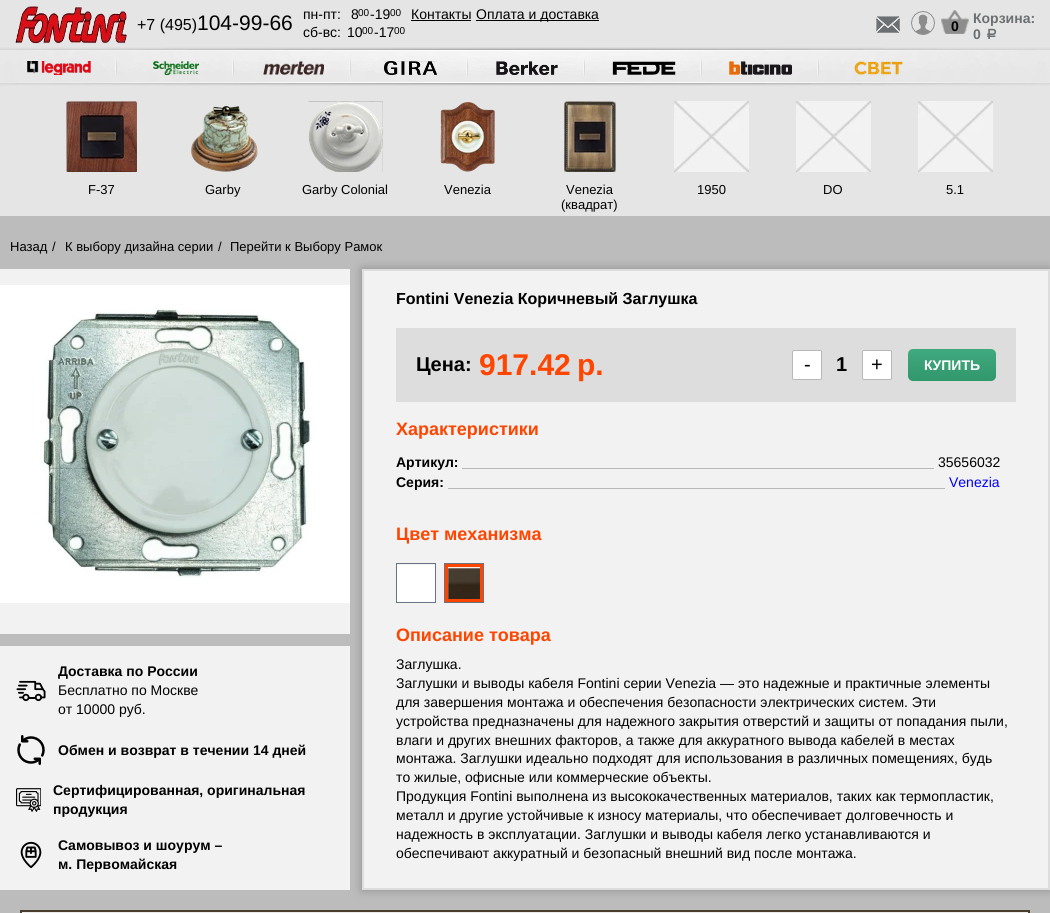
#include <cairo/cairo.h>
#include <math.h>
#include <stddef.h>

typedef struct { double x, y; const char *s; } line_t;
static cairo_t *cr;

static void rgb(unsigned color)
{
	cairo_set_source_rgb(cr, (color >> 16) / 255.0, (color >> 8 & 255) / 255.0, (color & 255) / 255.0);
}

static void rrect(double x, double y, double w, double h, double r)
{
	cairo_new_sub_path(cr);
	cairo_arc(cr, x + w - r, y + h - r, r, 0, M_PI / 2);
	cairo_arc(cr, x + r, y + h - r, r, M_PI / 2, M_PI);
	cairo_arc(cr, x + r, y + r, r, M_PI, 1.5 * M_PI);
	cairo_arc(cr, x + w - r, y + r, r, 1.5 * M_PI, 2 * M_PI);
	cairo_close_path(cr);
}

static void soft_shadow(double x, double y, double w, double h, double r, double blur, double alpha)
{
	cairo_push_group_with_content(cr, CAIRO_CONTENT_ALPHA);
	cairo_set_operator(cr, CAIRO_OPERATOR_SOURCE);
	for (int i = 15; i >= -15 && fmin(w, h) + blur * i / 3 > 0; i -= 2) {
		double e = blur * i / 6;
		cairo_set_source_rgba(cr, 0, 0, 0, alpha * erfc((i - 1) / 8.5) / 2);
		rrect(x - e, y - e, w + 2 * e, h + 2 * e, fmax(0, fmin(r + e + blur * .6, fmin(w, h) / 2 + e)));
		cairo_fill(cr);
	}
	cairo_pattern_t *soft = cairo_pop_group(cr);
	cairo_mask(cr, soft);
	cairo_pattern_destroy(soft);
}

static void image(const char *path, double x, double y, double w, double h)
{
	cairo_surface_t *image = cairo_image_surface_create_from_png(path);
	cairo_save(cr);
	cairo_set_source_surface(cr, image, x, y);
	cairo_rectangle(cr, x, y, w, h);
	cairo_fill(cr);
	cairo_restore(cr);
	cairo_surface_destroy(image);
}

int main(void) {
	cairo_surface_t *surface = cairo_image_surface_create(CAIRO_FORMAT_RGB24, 1050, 913);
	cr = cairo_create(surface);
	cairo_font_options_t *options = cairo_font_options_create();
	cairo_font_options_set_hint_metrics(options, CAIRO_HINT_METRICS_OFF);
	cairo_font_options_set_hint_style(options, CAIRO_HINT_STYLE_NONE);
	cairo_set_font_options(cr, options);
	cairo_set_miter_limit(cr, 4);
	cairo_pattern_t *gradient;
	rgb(0xbcbcbc);
	cairo_paint(cr);
	rgb(0xe5e5e5);
	cairo_rectangle(cr, 0, 0, 1050, 216);
	cairo_fill(cr);
	image("img/1.png", 15, 6, 112, 38);
	rgb(0x000000);
	cairo_rectangle(cr, 411, 20, 60, 1);
	cairo_fill(cr);
	cairo_rectangle(cr, 476, 20, 123, 1);
	cairo_fill(cr);
	image("img/2.png", 876, 16, 24, 17);
	image("img/3.png", 911, 11, 24, 24);
	image("img/4.png", 941, 10, 28, 24);
	image("img/5.png", 0, 47, 1050, 39);
	image("img/6.png", 27, 61, 64, 14);
	image("img/7.png", 115, 59, 2, 17);
	image("img/8.png", 153, 61, 46, 14);
	image("img/9.png", 232, 59, 2, 17);
	image("img/10.png", 263, 61, 61, 14);
	image("img/11.png", 349, 59, 2, 18);
	image("img/12.png", 384, 61, 53, 14);
	image("img/13.png", 466, 58, 2, 19);
	image("img/14.png", 496, 61, 62, 14);
	image("img/15.png", 583, 58, 2, 19);
	image("img/16.png", 612, 61, 64, 14);
	image("img/17.png", 700, 59, 2, 18);
	image("img/18.png", 729, 61, 63, 14);
	image("img/19.png", 817, 59, 2, 17);
	image("img/20.png", 854, 61, 49, 14);
	image("img/21.png", 66, 101, 71, 71);
	image("img/22.png", 191, 106, 67, 66);
	image("img/23.png", 308, 101, 75, 71);
	image("img/24.png", 440, 101, 55, 71);
	image("img/25.png", 564, 101, 52, 71);
	image("img/26.png", 674, 101, 75, 71);
	image("img/26.png", 796, 101, 75, 71);
	image("img/26.png", 918, 101, 75, 71);
	rgb(0xf2f2f2);
	cairo_rectangle(cr, 0, 269, 350, 365);
	cairo_fill(cr);
	image("img/27.png", 0, 285, 350, 318);
	cairo_rectangle(cr, 0, 646, 350, 244);
	cairo_fill(cr);
	image("img/28.png", 16, 680, 30, 22);
	image("img/29.png", 17, 735, 28, 30);
	image("img/30.png", 16, 788, 25, 24);
	image("img/31.png", 20, 841, 22, 28);
	rgb(0x000000);
	soft_shadow(362, 269, 688, 621, 0, 5, 0.25);
	rgb(0xf2f2f2);
	cairo_rectangle(cr, 363, 270, 686, 619);
	cairo_fill_preserve(cr);
	rgb(0xdddddd);
	cairo_stroke(cr);
	cairo_rectangle(cr, 396, 328, 620, 74);
	cairo_fill(cr);
	rgb(0xffffff);
	rrect(792.5, 350.5, 29, 29, 1.5);
	cairo_fill_preserve(cr);
	rgb(0xb8b8b8);
	cairo_set_line_width(cr, 1);
	cairo_stroke(cr);
	rgb(0xffffff);
	rrect(862.5, 350.5, 29, 29, 1.5);
	cairo_fill_preserve(cr);
	rgb(0xb8b8b8);
	cairo_stroke(cr);
	gradient = cairo_pattern_create_linear(952, 349, 952, 381);
	cairo_pattern_add_color_stop_rgba(gradient, 0, 0.255, 0.663, 0.498, 1);
	cairo_pattern_add_color_stop_rgba(gradient, 1, 0.192, 0.592, 0.427, 1);
	cairo_set_source(cr, gradient);
	cairo_pattern_destroy(gradient);
	rrect(908, 349, 88, 32, 5);
	cairo_fill(cr);
	rgb(0xb8b8b8);
	cairo_rectangle(cr, 462, 468, 472, 1);
	cairo_fill(cr);
	cairo_rectangle(cr, 448, 488, 497, 1);
	cairo_fill(cr);
	cairo_rectangle(cr, 396.5, 563.5, 39, 39);
	rgb(0x6a7381);
	cairo_stroke(cr);
	rgb(0xffffff);
	cairo_rectangle(cr, 397, 565, 38, 37);
	cairo_fill(cr);
	cairo_rectangle(cr, 446.5, 565.5, 35, 35);
	rgb(0xff4500);
	cairo_set_line_width(cr, 3);
	cairo_stroke(cr);
	cairo_rectangle(cr, 444.5, 563.5, 39, 39);
	rgb(0x6a7381);
	cairo_set_line_width(cr, 1);
	cairo_stroke(cr);
	image("img/32.png", 448, 568, 32, 31);
	rgb(0xebebeb);
	cairo_rectangle(cr, 21, 911, 1008, 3);
	cairo_fill_preserve(cr);
	rgb(0x493d2d);
	cairo_set_line_width(cr, 2);
	cairo_stroke(cr);
	cairo_select_font_face(cr, "Liberation Sans", CAIRO_FONT_SLANT_NORMAL, CAIRO_FONT_WEIGHT_NORMAL);
	cairo_set_font_size(cr, 16);
	rgb(0x000000);
	cairo_move_to(cr, 137, 30);
	cairo_show_text(cr, "+7 (495)");
	cairo_set_font_size(cr, 21);
	cairo_move_to(cr, 197, 30);
	cairo_show_text(cr, "104-99-66");
	cairo_set_font_size(cr, 14);
	cairo_move_to(cr, 303, 19);
	cairo_show_text(cr, "пн-пт:");
	cairo_move_to(cr, 351, 19);
	cairo_show_text(cr, "8");
	cairo_set_font_size(cr, 10);
	cairo_move_to(cr, 358, 16);
	cairo_show_text(cr, "00");
	cairo_set_font_size(cr, 14);
	cairo_move_to(cr, 370, 19);
	cairo_show_text(cr, "-19");
	cairo_set_font_size(cr, 10);
	cairo_move_to(cr, 390, 16);
	cairo_show_text(cr, "00");
	cairo_set_font_size(cr, 14);
	cairo_move_to(cr, 303, 37);
	cairo_show_text(cr, "сб-вс:");
	cairo_move_to(cr, 347, 37);
	cairo_show_text(cr, "10");
	cairo_set_font_size(cr, 10);
	cairo_move_to(cr, 362, 34);
	cairo_show_text(cr, "00");
	cairo_set_font_size(cr, 14);
	cairo_move_to(cr, 374, 37);
	cairo_show_text(cr, "-17");
	cairo_set_font_size(cr, 10);
	cairo_move_to(cr, 394, 34);
	cairo_show_text(cr, "00");
	cairo_set_font_size(cr, 14);
	cairo_move_to(cr, 411, 19);
	cairo_show_text(cr, "Контакты");
	cairo_move_to(cr, 476, 19);
	cairo_show_text(cr, "Оплата и доставка");
	cairo_select_font_face(cr, "Liberation Sans", CAIRO_FONT_SLANT_NORMAL, CAIRO_FONT_WEIGHT_BOLD);
	cairo_move_to(cr, 951, 31);
	cairo_show_text(cr, "0");
	rgb(0x6c7072);
	cairo_move_to(cr, 973, 23);
	cairo_show_text(cr, "Корзина:");
	cairo_move_to(cr, 973, 39);
	cairo_show_text(cr, "0");
	cairo_select_font_face(cr, "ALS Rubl", CAIRO_FONT_SLANT_NORMAL, CAIRO_FONT_WEIGHT_BOLD);
	cairo_move_to(cr, 985, 39);
	cairo_show_text(cr, "a");
	cairo_select_font_face(cr, "Liberation Sans", CAIRO_FONT_SLANT_NORMAL, CAIRO_FONT_WEIGHT_NORMAL);
	cairo_set_font_size(cr, 13);
	rgb(0x000000);
	{
		static const line_t items[] = {
			{88, 194, "F-37"},
			{205, 194, "Garby"},
			{302, 194, "Garby Colonial"},
			{444, 194, "Venezia"},
			{566, 194, "Venezia"},
			{561, 209, "(квадрат)"},
			{697, 194, "1950"},
			{823, 194, "DO"},
			{946, 194, "5.1"},
			{10, 251, "Назад"},
			{52, 251, "/"},
			{65, 251, "К выбору дизайна серии"},
			{218, 251, "/"},
			{230, 251, "Перейти к Выбору Рамок"},
		};
		for (size_t i = 0; i < sizeof items / sizeof *items; i++) {
			cairo_move_to(cr, items[i].x, items[i].y);
			cairo_show_text(cr, items[i].s);
		}
	}
	cairo_select_font_face(cr, "Liberation Sans", CAIRO_FONT_SLANT_NORMAL, CAIRO_FONT_WEIGHT_BOLD);
	cairo_set_font_size(cr, 14);
	cairo_move_to(cr, 58, 676);
	cairo_show_text(cr, "Доставка по России");
	cairo_select_font_face(cr, "Liberation Sans", CAIRO_FONT_SLANT_NORMAL, CAIRO_FONT_WEIGHT_NORMAL);
	cairo_move_to(cr, 58, 695);
	cairo_show_text(cr, "Бесплатно по Москве");
	cairo_move_to(cr, 58, 714);
	cairo_show_text(cr, "от 10000 руб.");
	cairo_select_font_face(cr, "Liberation Sans", CAIRO_FONT_SLANT_NORMAL, CAIRO_FONT_WEIGHT_BOLD);
	{
		static const line_t items[] = {
			{58, 755, "Обмен и возврат в течении 14 дней"},
			{53, 795, "Сертифицированная, оригинальная"},
			{53, 814, "продукция"},
			{58, 850, "Самовывоз и шоурум –"},
			{58, 869, "м. Первомайская"},
		};
		for (size_t i = 0; i < sizeof items / sizeof *items; i++) {
			cairo_move_to(cr, items[i].x, items[i].y);
			cairo_show_text(cr, items[i].s);
		}
	}
	cairo_set_font_size(cr, 16);
	cairo_move_to(cr, 396, 304);
	cairo_show_text(cr, "Fontini Venezia Коричневый Заглушка");
	cairo_set_font_size(cr, 20);
	cairo_move_to(cr, 416, 371);
	cairo_show_text(cr, "Цена:");
	cairo_set_font_size(cr, 30);
	rgb(0xff4500);
	cairo_move_to(cr, 479, 375);
	cairo_show_text(cr, "917.42");
	cairo_move_to(cr, 577, 375);
	cairo_show_text(cr, "р.");
	cairo_select_font_face(cr, "Liberation Sans", CAIRO_FONT_SLANT_NORMAL, CAIRO_FONT_WEIGHT_NORMAL);
	cairo_set_font_size(cr, 20);
	rgb(0x000000);
	cairo_move_to(cr, 804, 371);
	cairo_show_text(cr, "-");
	cairo_select_font_face(cr, "Liberation Sans", CAIRO_FONT_SLANT_NORMAL, CAIRO_FONT_WEIGHT_BOLD);
	cairo_move_to(cr, 836, 371);
	cairo_show_text(cr, "1");
	cairo_select_font_face(cr, "Liberation Sans", CAIRO_FONT_SLANT_NORMAL, CAIRO_FONT_WEIGHT_NORMAL);
	cairo_move_to(cr, 871, 371);
	cairo_show_text(cr, "+");
	cairo_select_font_face(cr, "Liberation Sans", CAIRO_FONT_SLANT_NORMAL, CAIRO_FONT_WEIGHT_BOLD);
	cairo_set_font_size(cr, 14);
	rgb(0xffffff);
	cairo_move_to(cr, 924, 370);
	cairo_show_text(cr, "КУПИТЬ");
	cairo_set_font_size(cr, 18);
	rgb(0xff4500);
	cairo_move_to(cr, 396, 435);
	cairo_show_text(cr, "Характеристики");
	cairo_set_font_size(cr, 14);
	rgb(0x000000);
	cairo_move_to(cr, 396, 467);
	cairo_show_text(cr, "Артикул:");
	cairo_select_font_face(cr, "Liberation Sans", CAIRO_FONT_SLANT_NORMAL, CAIRO_FONT_WEIGHT_NORMAL);
	cairo_move_to(cr, 938, 467);
	cairo_show_text(cr, "35656032");
	cairo_select_font_face(cr, "Liberation Sans", CAIRO_FONT_SLANT_NORMAL, CAIRO_FONT_WEIGHT_BOLD);
	cairo_move_to(cr, 396, 487);
	cairo_show_text(cr, "Серия:");
	cairo_select_font_face(cr, "Liberation Sans", CAIRO_FONT_SLANT_NORMAL, CAIRO_FONT_WEIGHT_NORMAL);
	rgb(0x0000ff);
	cairo_move_to(cr, 949, 487);
	cairo_show_text(cr, "Venezia");
	cairo_select_font_face(cr, "Liberation Sans", CAIRO_FONT_SLANT_NORMAL, CAIRO_FONT_WEIGHT_BOLD);
	cairo_set_font_size(cr, 18);
	rgb(0xff4500);
	cairo_move_to(cr, 396, 540);
	cairo_show_text(cr, "Цвет механизма");
	cairo_move_to(cr, 396, 641);
	cairo_show_text(cr, "Описание товара");
	cairo_select_font_face(cr, "Liberation Sans", CAIRO_FONT_SLANT_NORMAL, CAIRO_FONT_WEIGHT_NORMAL);
	cairo_set_font_size(cr, 14);
	rgb(0x000000);
	{
		static const line_t items[] = {
			{396, 669, "Заглушка."},
			{396, 688, "Заглушки и выводы кабеля Fontini серии Venezia — это надежные и практичные элементы"},
			{396, 707, "для завершения монтажа и обеспечения безопасности электрических систем. Эти"},
			{396, 726, "устройства предназначены для надежного закрытия отверстий и защиты от попадания пыли,"},
			{396, 745, "влаги и других внешних факторов, а также для аккуратного вывода кабелей в местах"},
			{396, 763, "монтажа. Заглушки идеально подходят для использования в различных помещениях, будь"},
			{396, 782, "то жилые, офисные или коммерческие объекты."},
			{396, 801, "Продукция Fontini выполнена из высококачественных материалов, таких как термопластик,"},
			{396, 820, "металл и другие устойчивые к износу материалы, что обеспечивает долговечность и"},
			{396, 839, "надежность в эксплуатации. Заглушки и выводы кабеля легко устанавливаются и"},
			{396, 858, "обеспечивают аккуратный и безопасный внешний вид после монтажа."},
		};
		for (size_t i = 0; i < sizeof items / sizeof *items; i++) {
			cairo_move_to(cr, items[i].x, items[i].y);
			cairo_show_text(cr, items[i].s);
		}
	}
	cairo_surface_write_to_png(surface, "page.png");
	cairo_font_options_destroy(options);
	cairo_destroy(cr);
	cairo_surface_destroy(surface);
	return 0;
}
